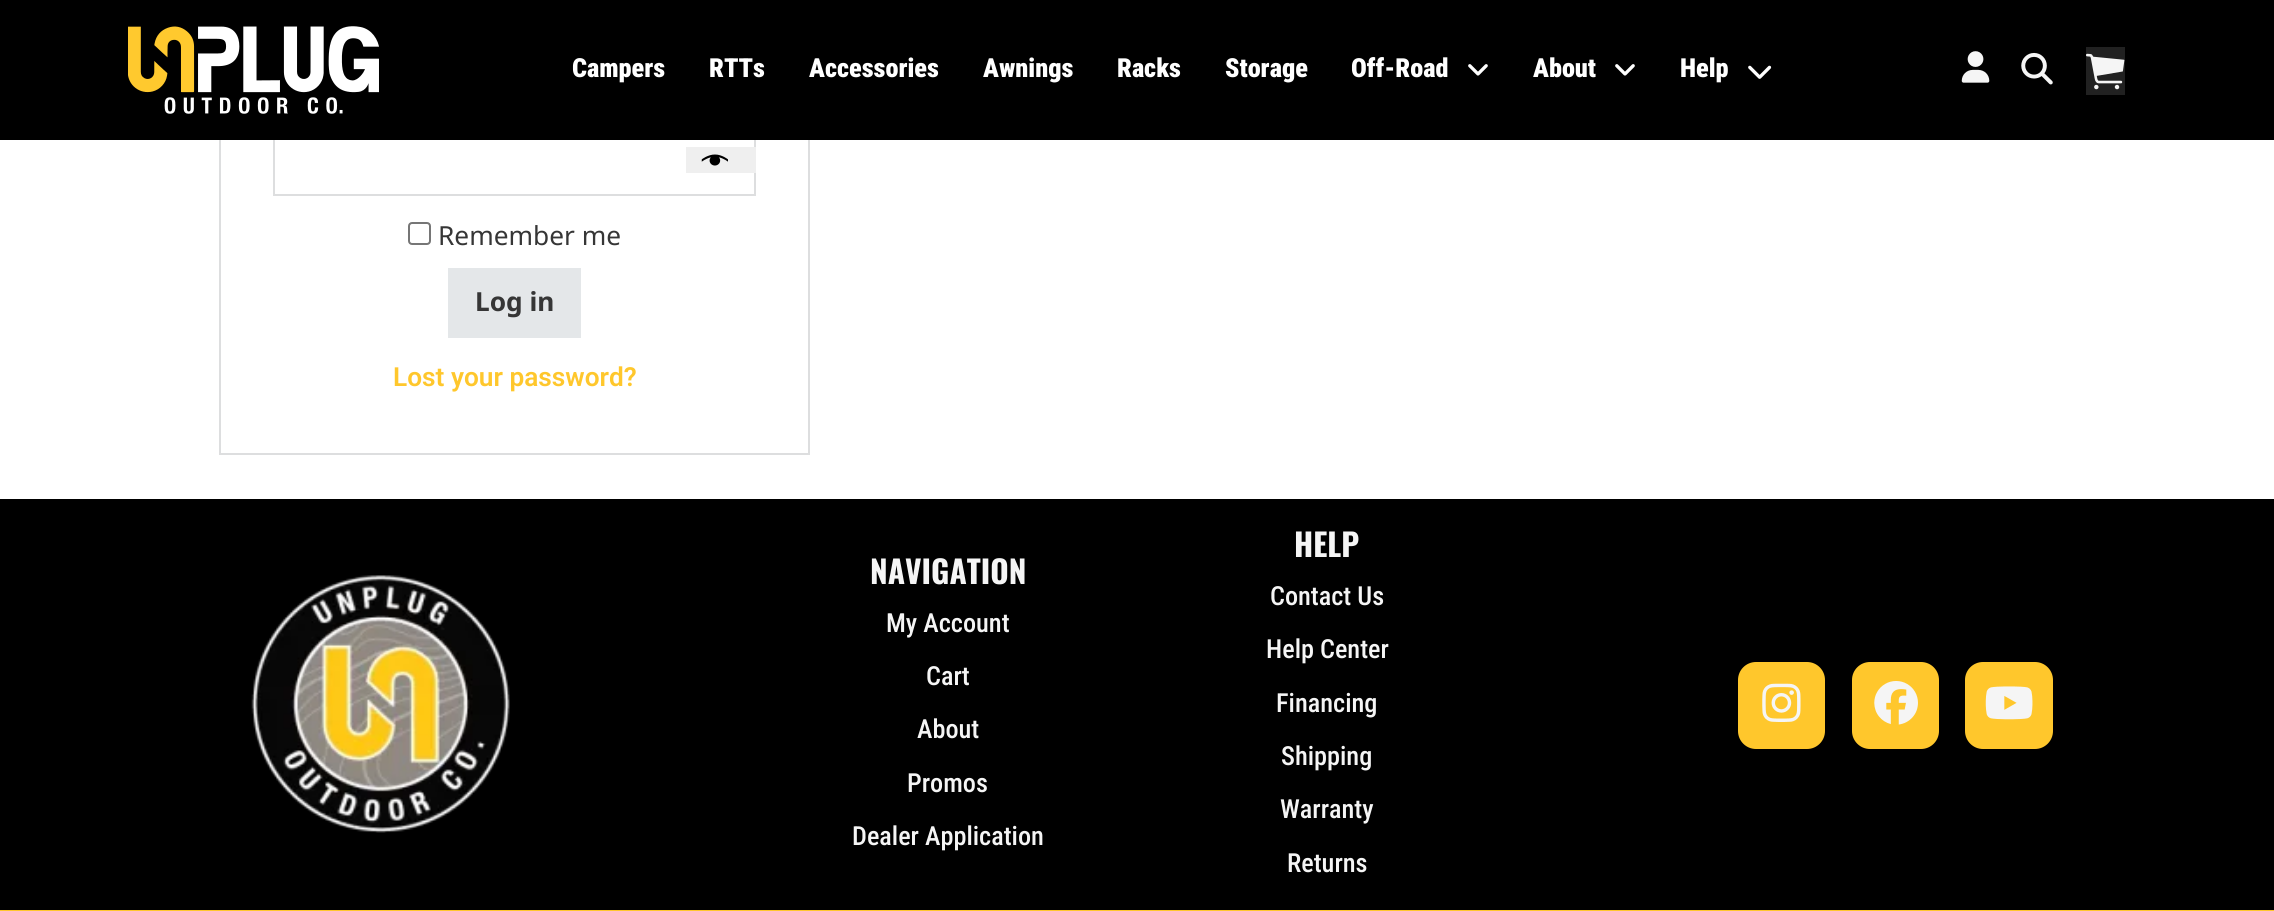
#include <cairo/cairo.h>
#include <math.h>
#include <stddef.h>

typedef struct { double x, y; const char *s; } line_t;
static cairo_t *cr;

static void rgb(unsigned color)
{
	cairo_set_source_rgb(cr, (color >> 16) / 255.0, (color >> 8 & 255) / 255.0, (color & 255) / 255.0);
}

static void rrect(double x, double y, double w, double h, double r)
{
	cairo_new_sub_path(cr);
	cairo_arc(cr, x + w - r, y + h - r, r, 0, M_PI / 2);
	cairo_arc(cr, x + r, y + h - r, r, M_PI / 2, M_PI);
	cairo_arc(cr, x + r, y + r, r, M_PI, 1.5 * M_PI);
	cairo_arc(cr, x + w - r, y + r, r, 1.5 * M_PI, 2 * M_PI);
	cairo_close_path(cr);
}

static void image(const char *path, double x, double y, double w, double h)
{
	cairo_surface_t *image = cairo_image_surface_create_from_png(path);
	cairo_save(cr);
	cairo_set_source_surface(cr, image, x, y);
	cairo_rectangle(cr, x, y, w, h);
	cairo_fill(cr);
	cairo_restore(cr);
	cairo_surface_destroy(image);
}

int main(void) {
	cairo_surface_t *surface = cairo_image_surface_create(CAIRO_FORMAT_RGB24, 2274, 911);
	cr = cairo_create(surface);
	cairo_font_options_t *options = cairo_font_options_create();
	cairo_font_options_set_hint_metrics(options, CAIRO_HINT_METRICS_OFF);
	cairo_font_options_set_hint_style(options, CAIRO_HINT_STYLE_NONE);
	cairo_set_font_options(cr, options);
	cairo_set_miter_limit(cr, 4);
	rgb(0xffffff);
	cairo_paint(cr);
	cairo_rectangle(cr, 220, -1, 589, 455);
	rgb(0xdddedf);
	cairo_stroke(cr);
	cairo_rectangle(cr, 274, 124, 481, 71);
	cairo_stroke(cr);
	rgb(0x000000);
	cairo_rectangle(cr, 0, 0, 2274, 140);
	cairo_fill(cr);
	image("img/1.png", 128, 26, 251, 88);
	image("img/2.png", 1468, 64, 20, 12);
	image("img/2.png", 1615, 64, 20, 12);
	image("img/3.png", 1748, 65, 24, 14);
	image("img/4.png", 1961, 51, 29, 32);
	image("img/5.png", 2021, 52, 32, 33);
	rgb(0x212121);
	cairo_rectangle(cr, 2086, 47, 39, 48);
	cairo_fill(cr);
	image("img/6.png", 2086, 53, 39, 37);
	rgb(0xefefef);
	cairo_rectangle(cr, 686, 147, 70, 26);
	cairo_fill(cr);
	image("img/7.png", 701, 154, 27, 12);
	rrect(409, 223, 21, 21, 3);
	rgb(0x767676);
	cairo_stroke(cr);
	rgb(0xe4e7e9);
	cairo_rectangle(cr, 448, 268, 133, 70);
	cairo_fill(cr);
	rgb(0x000000);
	cairo_rectangle(cr, 0, 499, 2274, 411);
	cairo_fill(cr);
	image("img/8.png", 251, 575, 259, 258);
	rgb(0xffc72c);
	rrect(1738, 662, 87, 87, 18);
	cairo_fill(cr);
	image("img/9.png", 1762, 683, 39, 39);
	rrect(1852, 662, 87, 87, 18);
	cairo_fill(cr);
	image("img/10.png", 1874, 681, 44, 44);
	rrect(1965, 662, 88, 87, 18);
	cairo_fill(cr);
	image("img/11.png", 1985, 686, 48, 34);
	cairo_rectangle(cr, 0, 910, 2274, 1);
	cairo_fill(cr);
	cairo_select_font_face(cr, "Roboto Condensed Black", CAIRO_FONT_SLANT_NORMAL, CAIRO_FONT_WEIGHT_NORMAL);
	cairo_set_font_size(cr, 26.25);
	rgb(0xffffff);
	{
		static const line_t items[] = {
			{572, 77, "Campers"},
			{709, 77, "RTTs"},
			{809, 77, "Accessories"},
			{983, 77, "Awnings"},
			{1117, 77, "Racks"},
			{1225, 77, "Storage"},
			{1351, 77, "Off-Road"},
			{1533, 77, "About"},
			{1680, 77, "Help"},
		};
		for (size_t i = 0; i < sizeof items / sizeof *items; i++) {
			cairo_move_to(cr, items[i].x, items[i].y);
			cairo_show_text(cr, items[i].s);
		}
	}
	cairo_select_font_face(cr, "Noto Sans", CAIRO_FONT_SLANT_NORMAL, CAIRO_FONT_WEIGHT_NORMAL);
	rgb(0x363636);
	cairo_move_to(cr, 438, 245);
	cairo_show_text(cr, "Remember me");
	cairo_select_font_face(cr, "Noto Sans", CAIRO_FONT_SLANT_NORMAL, CAIRO_FONT_WEIGHT_BOLD);
	cairo_move_to(cr, 475, 311);
	cairo_show_text(cr, "Log in");
	cairo_select_font_face(cr, "Roboto SemiBold", CAIRO_FONT_SLANT_NORMAL, CAIRO_FONT_WEIGHT_NORMAL);
	rgb(0xffc72c);
	cairo_move_to(cr, 393, 386);
	cairo_show_text(cr, "Lost your password?");
	cairo_select_font_face(cr, "Oswald", CAIRO_FONT_SLANT_NORMAL, CAIRO_FONT_WEIGHT_BOLD);
	cairo_set_font_size(cr, 31.5);
	rgb(0xf5f5f5);
	cairo_move_to(cr, 870, 584);
	cairo_show_text(cr, "NAVIGATION");
	cairo_select_font_face(cr, "Roboto Condensed Medium", CAIRO_FONT_SLANT_NORMAL, CAIRO_FONT_WEIGHT_NORMAL);
	cairo_set_font_size(cr, 26.25);
	{
		static const line_t items[] = {
			{886, 632, "My Account"},
			{926, 685, "Cart"},
			{917, 738, "About"},
			{907, 792, "Promos"},
			{852, 845, "Dealer Application"},
		};
		for (size_t i = 0; i < sizeof items / sizeof *items; i++) {
			cairo_move_to(cr, items[i].x, items[i].y);
			cairo_show_text(cr, items[i].s);
		}
	}
	cairo_select_font_face(cr, "Oswald", CAIRO_FONT_SLANT_NORMAL, CAIRO_FONT_WEIGHT_BOLD);
	cairo_set_font_size(cr, 31.5);
	cairo_move_to(cr, 1294, 557);
	cairo_show_text(cr, "HELP");
	cairo_select_font_face(cr, "Roboto Condensed Medium", CAIRO_FONT_SLANT_NORMAL, CAIRO_FONT_WEIGHT_NORMAL);
	cairo_set_font_size(cr, 26.25);
	{
		static const line_t items[] = {
			{1270, 605, "Contact Us"},
			{1266, 658, "Help Center"},
			{1276, 712, "Financing"},
			{1281, 765, "Shipping"},
			{1280, 818, "Warranty"},
			{1287, 872, "Returns"},
		};
		for (size_t i = 0; i < sizeof items / sizeof *items; i++) {
			cairo_move_to(cr, items[i].x, items[i].y);
			cairo_show_text(cr, items[i].s);
		}
	}
	cairo_surface_write_to_png(surface, "page.png");
	cairo_font_options_destroy(options);
	cairo_destroy(cr);
	cairo_surface_destroy(surface);
	return 0;
}
